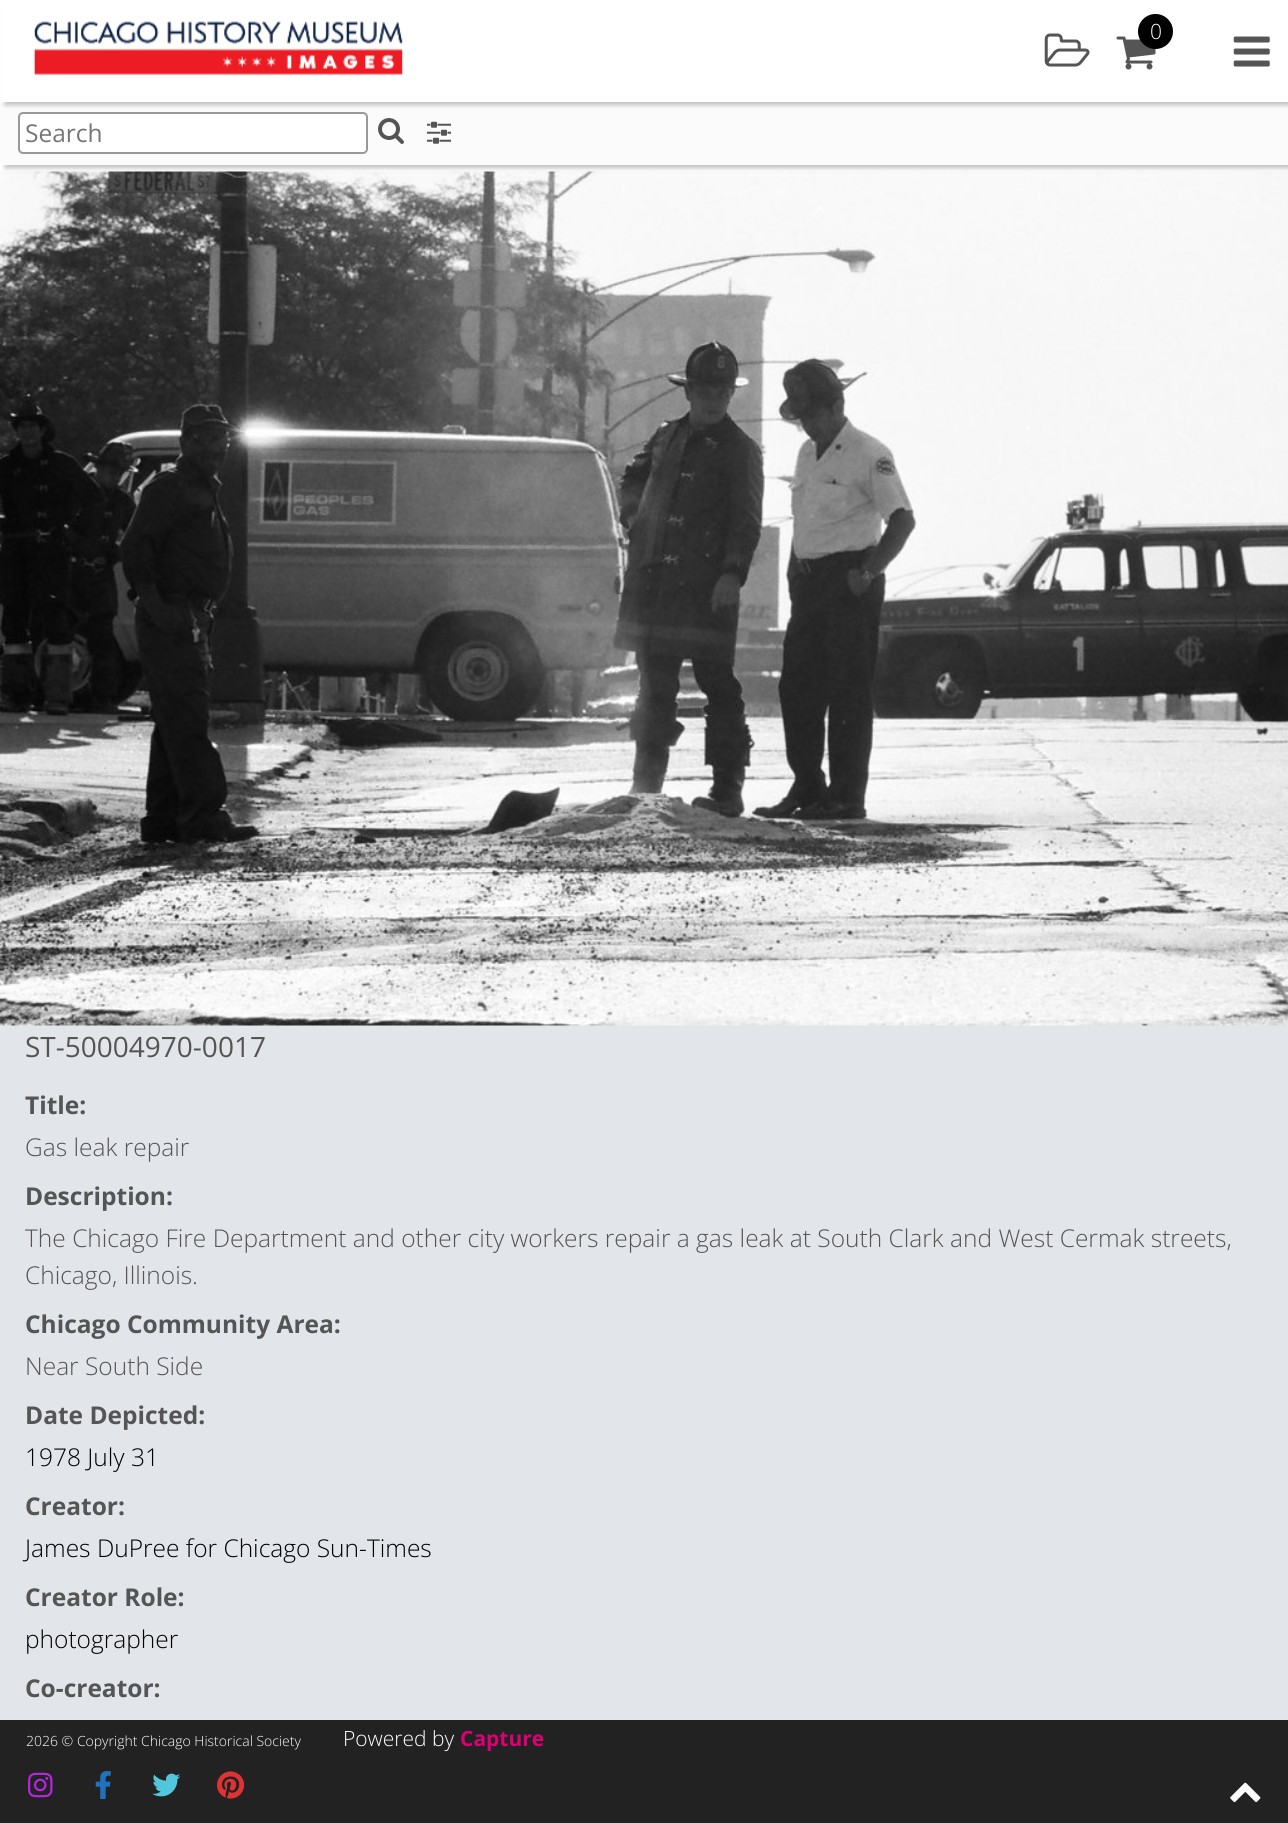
#include <cairo/cairo.h>
#include <math.h>
#include <stddef.h>

static cairo_t *cr;

static void rgb(unsigned color)
{
	cairo_set_source_rgb(cr, (color >> 16) / 255.0, (color >> 8 & 255) / 255.0, (color & 255) / 255.0);
}

static void rrect(double x, double y, double w, double h, double r)
{
	cairo_new_sub_path(cr);
	cairo_arc(cr, x + w - r, y + h - r, r, 0, M_PI / 2);
	cairo_arc(cr, x + r, y + h - r, r, M_PI / 2, M_PI);
	cairo_arc(cr, x + r, y + r, r, M_PI, 1.5 * M_PI);
	cairo_arc(cr, x + w - r, y + r, r, 1.5 * M_PI, 2 * M_PI);
	cairo_close_path(cr);
}

static void soft_shadow(double x, double y, double w, double h, double r, double blur, double alpha)
{
	cairo_push_group_with_content(cr, CAIRO_CONTENT_ALPHA);
	cairo_set_operator(cr, CAIRO_OPERATOR_SOURCE);
	for (int i = 15; i >= -15 && fmin(w, h) + blur * i / 3 > 0; i -= 2) {
		double e = blur * i / 6;
		cairo_set_source_rgba(cr, 0, 0, 0, alpha * erfc((i - 1) / 8.5) / 2);
		rrect(x - e, y - e, w + 2 * e, h + 2 * e, fmax(0, fmin(r + e + blur * .6, fmin(w, h) / 2 + e)));
		cairo_fill(cr);
	}
	cairo_pattern_t *soft = cairo_pop_group(cr);
	cairo_mask(cr, soft);
	cairo_pattern_destroy(soft);
}

static void image(const char *path, double x, double y, double w, double h)
{
	cairo_surface_t *image = cairo_image_surface_create_from_png(path);
	cairo_save(cr);
	cairo_set_source_surface(cr, image, x, y);
	cairo_rectangle(cr, x, y, w, h);
	cairo_fill(cr);
	cairo_restore(cr);
	cairo_surface_destroy(image);
}

int main(void) {
	cairo_surface_t *surface = cairo_image_surface_create(CAIRO_FORMAT_RGB24, 1288, 1823);
	cr = cairo_create(surface);
	cairo_font_options_t *options = cairo_font_options_create();
	cairo_font_options_set_hint_metrics(options, CAIRO_HINT_METRICS_OFF);
	cairo_font_options_set_hint_style(options, CAIRO_HINT_STYLE_NONE);
	cairo_set_font_options(cr, options);
	cairo_set_miter_limit(cr, 4);
	rgb(0xffffff);
	cairo_paint(cr);
	rgb(0xe2e5e9);
	cairo_rectangle(cr, 0, 1025, 1288, 695);
	cairo_fill(cr);
	image("img/7.png", 0, 171, 1288, 855);
	rgb(0x4a4545);
	soft_shadow(5, 105, 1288, 63, 0, 2.5, 0.35);
	rgb(0xfbfbfb);
	cairo_rectangle(cr, 0, 102, 1288, 63);
	cairo_fill(cr);
	rgb(0xffffff);
	rrect(19, 113, 348, 40, 4);
	cairo_fill_preserve(cr);
	rgb(0x999999);
	cairo_stroke(cr);
	rgb(0x4a4545);
	soft_shadow(5, 4, 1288, 101, 0, 2.5, 0.35);
	rgb(0xffffff);
	cairo_rectangle(cr, 1, 0, 1287, 102);
	cairo_fill(cr);
	image("img/1.png", 33, 21, 370, 54);
	image("img/2.png", 1044, 33, 46, 34);
	image("img/3.png", 1116, 36, 40, 34);
	rgb(0x000000);
	cairo_arc(cr, 1155.5, 31.5, 17.5, 0, 2 * M_PI);
	cairo_fill(cr);
	image("img/4.png", 1233, 36, 37, 31);
	image("img/5.png", 378, 118, 26, 26);
	image("img/6.png", 427, 121, 24, 23);
	rgb(0x222222);
	cairo_rectangle(cr, 0, 1720, 1288, 103);
	cairo_fill(cr);
	image("img/8.png", 28, 1772, 25, 26);
	image("img/9.png", 95, 1771, 16, 28);
	image("img/10.png", 152, 1773, 29, 24);
	image("img/11.png", 217, 1771, 28, 28);
	image("img/12.png", 1230, 1782, 31, 21);
	cairo_select_font_face(cr, "Open Sans Light", CAIRO_FONT_SLANT_NORMAL, CAIRO_FONT_WEIGHT_NORMAL);
	cairo_set_font_size(cr, 21);
	rgb(0xffffff);
	cairo_move_to(cr, 1150, 39);
	cairo_show_text(cr, "0");
	cairo_select_font_face(cr, "Open Sans", CAIRO_FONT_SLANT_NORMAL, CAIRO_FONT_WEIGHT_NORMAL);
	cairo_set_font_size(cr, 24.5);
	rgb(0x757575);
	cairo_move_to(cr, 25, 142);
	cairo_show_text(cr, "Search");
	cairo_set_font_size(cr, 28);
	rgb(0x555555);
	cairo_move_to(cr, 25, 1057);
	cairo_show_text(cr, "ST-50004970-0017");
	cairo_select_font_face(cr, "Open Sans", CAIRO_FONT_SLANT_NORMAL, CAIRO_FONT_WEIGHT_BOLD);
	cairo_set_font_size(cr, 24.5);
	cairo_move_to(cr, 25, 1114);
	cairo_show_text(cr, "Title:");
	cairo_select_font_face(cr, "Open Sans Light", CAIRO_FONT_SLANT_NORMAL, CAIRO_FONT_WEIGHT_NORMAL);
	cairo_move_to(cr, 25, 1156);
	cairo_show_text(cr, "Gas leak repair");
	cairo_select_font_face(cr, "Open Sans", CAIRO_FONT_SLANT_NORMAL, CAIRO_FONT_WEIGHT_BOLD);
	cairo_move_to(cr, 25, 1205);
	cairo_show_text(cr, "Description:");
	cairo_select_font_face(cr, "Open Sans Light", CAIRO_FONT_SLANT_NORMAL, CAIRO_FONT_WEIGHT_NORMAL);
	cairo_move_to(cr, 25, 1247);
	cairo_show_text(cr, "The Chicago Fire Department and other city workers repair a gas leak at South Clark and West Cermak streets,");
	cairo_move_to(cr, 25, 1284);
	cairo_show_text(cr, "Chicago, Illinois.");
	cairo_select_font_face(cr, "Open Sans", CAIRO_FONT_SLANT_NORMAL, CAIRO_FONT_WEIGHT_BOLD);
	cairo_move_to(cr, 25, 1333);
	cairo_show_text(cr, "Chicago Community Area:");
	cairo_select_font_face(cr, "Open Sans Light", CAIRO_FONT_SLANT_NORMAL, CAIRO_FONT_WEIGHT_NORMAL);
	cairo_move_to(cr, 25, 1375);
	cairo_show_text(cr, "Near South Side");
	cairo_select_font_face(cr, "Open Sans", CAIRO_FONT_SLANT_NORMAL, CAIRO_FONT_WEIGHT_BOLD);
	cairo_move_to(cr, 25, 1424);
	cairo_show_text(cr, "Date Depicted:");
	cairo_select_font_face(cr, "Open Sans Light", CAIRO_FONT_SLANT_NORMAL, CAIRO_FONT_WEIGHT_NORMAL);
	rgb(0x000000);
	cairo_move_to(cr, 25, 1466);
	cairo_show_text(cr, "1978 July 31");
	cairo_select_font_face(cr, "Open Sans", CAIRO_FONT_SLANT_NORMAL, CAIRO_FONT_WEIGHT_BOLD);
	rgb(0x555555);
	cairo_move_to(cr, 25, 1515);
	cairo_show_text(cr, "Creator:");
	cairo_select_font_face(cr, "Open Sans Light", CAIRO_FONT_SLANT_NORMAL, CAIRO_FONT_WEIGHT_NORMAL);
	rgb(0x000000);
	cairo_move_to(cr, 25, 1557);
	cairo_show_text(cr, "James DuPree for Chicago Sun-Times");
	cairo_select_font_face(cr, "Open Sans", CAIRO_FONT_SLANT_NORMAL, CAIRO_FONT_WEIGHT_BOLD);
	rgb(0x555555);
	cairo_move_to(cr, 25, 1606);
	cairo_show_text(cr, "Creator Role:");
	cairo_select_font_face(cr, "Open Sans Light", CAIRO_FONT_SLANT_NORMAL, CAIRO_FONT_WEIGHT_NORMAL);
	rgb(0x000000);
	cairo_move_to(cr, 25, 1648);
	cairo_show_text(cr, "photographer");
	cairo_select_font_face(cr, "Open Sans", CAIRO_FONT_SLANT_NORMAL, CAIRO_FONT_WEIGHT_BOLD);
	rgb(0x555555);
	cairo_move_to(cr, 25, 1697);
	cairo_show_text(cr, "Co-creator:");
	cairo_select_font_face(cr, "Open Sans Light", CAIRO_FONT_SLANT_NORMAL, CAIRO_FONT_WEIGHT_NORMAL);
	cairo_set_font_size(cr, 14);
	rgb(0xffffff);
	cairo_move_to(cr, 26, 1746);
	cairo_show_text(cr, "2026 © Copyright Chicago Historical Society");
	cairo_set_font_size(cr, 21);
	cairo_move_to(cr, 343, 1746);
	cairo_show_text(cr, "Powered by");
	cairo_select_font_face(cr, "Open Sans", CAIRO_FONT_SLANT_NORMAL, CAIRO_FONT_WEIGHT_BOLD);
	rgb(0xdb0074);
	cairo_move_to(cr, 460, 1746);
	cairo_show_text(cr, "Capture");
	cairo_surface_write_to_png(surface, "page.png");
	cairo_font_options_destroy(options);
	cairo_destroy(cr);
	cairo_surface_destroy(surface);
	return 0;
}
